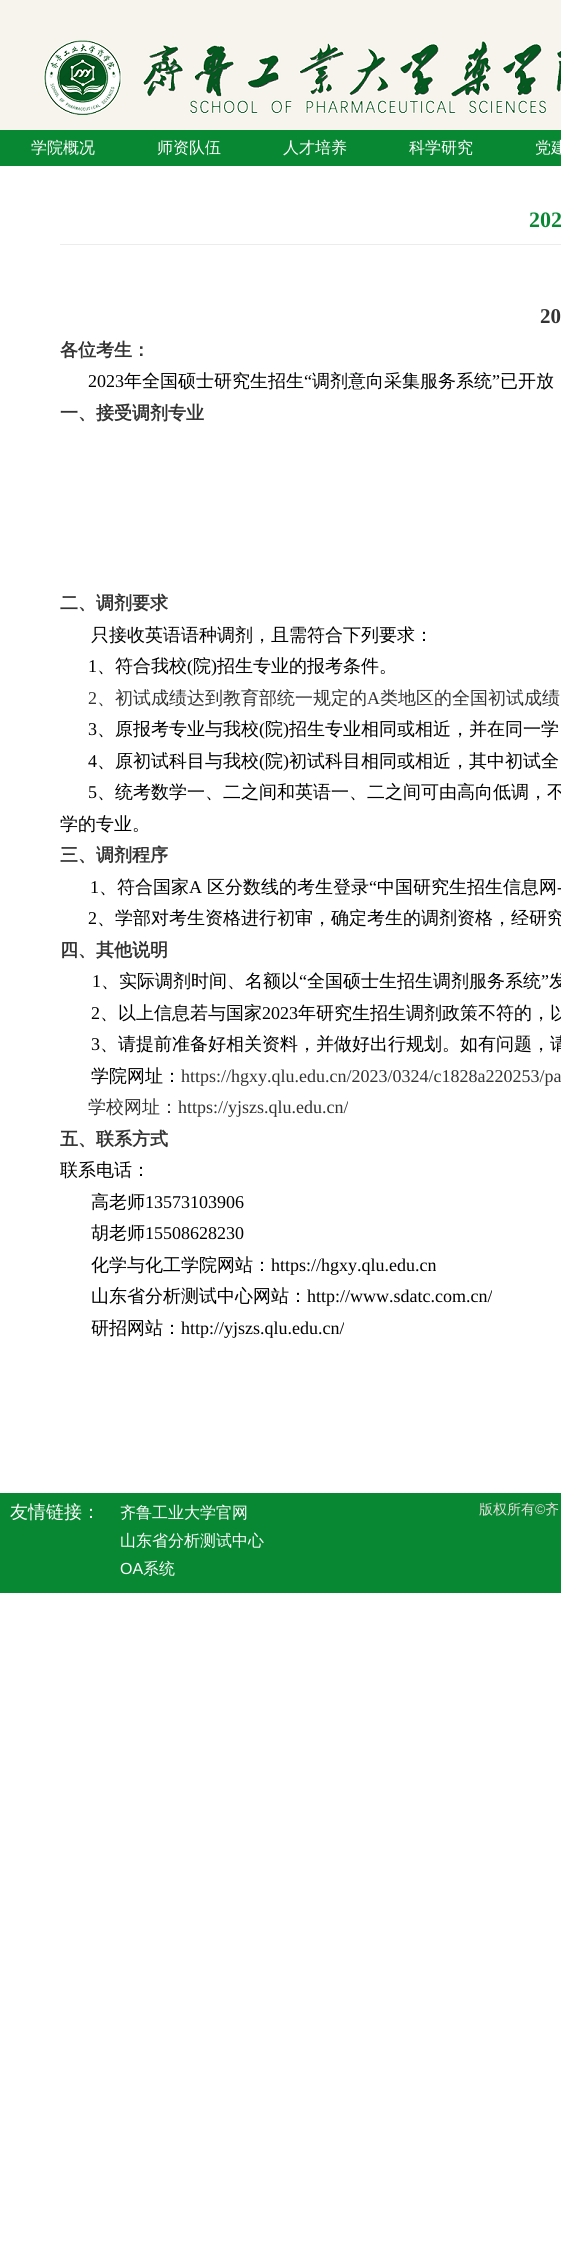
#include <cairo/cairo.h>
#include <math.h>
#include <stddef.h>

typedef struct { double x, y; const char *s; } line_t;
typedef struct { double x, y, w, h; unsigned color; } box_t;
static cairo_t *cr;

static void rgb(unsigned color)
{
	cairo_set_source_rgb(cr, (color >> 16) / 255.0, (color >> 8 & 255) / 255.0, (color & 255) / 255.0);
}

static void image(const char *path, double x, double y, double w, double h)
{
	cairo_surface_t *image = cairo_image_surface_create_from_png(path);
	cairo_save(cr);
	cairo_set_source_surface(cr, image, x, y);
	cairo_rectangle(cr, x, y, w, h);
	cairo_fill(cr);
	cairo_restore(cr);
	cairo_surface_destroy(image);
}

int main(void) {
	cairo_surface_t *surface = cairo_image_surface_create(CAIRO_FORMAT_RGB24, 561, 2263);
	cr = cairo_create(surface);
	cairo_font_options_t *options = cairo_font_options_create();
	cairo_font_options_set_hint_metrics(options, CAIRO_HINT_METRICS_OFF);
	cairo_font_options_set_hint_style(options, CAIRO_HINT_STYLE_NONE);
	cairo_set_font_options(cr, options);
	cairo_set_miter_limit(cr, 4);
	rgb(0xffffff);
	cairo_paint(cr);
	rgb(0xf7f4ed);
	cairo_rectangle(cr, 0, 0, 561, 130);
	cairo_fill(cr);
	image("img/1.png", 43, 40, 518, 75);
	{
		static const box_t items[] = {
			{0, 130, 561, 36, 0x098834},
			{60, 244, 501, 1, 0xececec},
			{0, 1493, 561, 100, 0x098834},
		};
		for (size_t i = 0; i < sizeof items / sizeof *items; i++) {
			rgb(items[i].color);
			cairo_rectangle(cr, items[i].x, items[i].y, items[i].w, items[i].h);
			cairo_fill(cr);
		}
	}
	cairo_select_font_face(cr, "WenQuanYi Zen Hei Medium", CAIRO_FONT_SLANT_NORMAL, CAIRO_FONT_WEIGHT_NORMAL);
	cairo_set_font_size(cr, 16);
	rgb(0xffffff);
	{
		static const line_t items[] = {
			{31, 153, "学院概况"},
			{157, 153, "师资队伍"},
			{283, 153, "人才培养"},
			{409, 153, "科学研究"},
			{535, 153, "党建"},
		};
		for (size_t i = 0; i < sizeof items / sizeof *items; i++) {
			cairo_move_to(cr, items[i].x, items[i].y);
			cairo_show_text(cr, items[i].s);
		}
	}
	cairo_select_font_face(cr, "Liberation Serif", CAIRO_FONT_SLANT_NORMAL, CAIRO_FONT_WEIGHT_BOLD);
	cairo_set_font_size(cr, 22);
	rgb(0x098834);
	cairo_move_to(cr, 529, 227);
	cairo_show_text(cr, "202");
	cairo_set_font_size(cr, 21);
	rgb(0x333333);
	cairo_move_to(cr, 540, 323);
	cairo_show_text(cr, "20");
	cairo_select_font_face(cr, "WenQuanYi Zen Hei", CAIRO_FONT_SLANT_NORMAL, CAIRO_FONT_WEIGHT_BOLD);
	cairo_set_font_size(cr, 18);
	cairo_move_to(cr, 60, 356);
	cairo_show_text(cr, "各位考生：");
	cairo_select_font_face(cr, "Liberation Serif", CAIRO_FONT_SLANT_NORMAL, CAIRO_FONT_WEIGHT_NORMAL);
	rgb(0x000000);
	cairo_move_to(cr, 88, 387);
	cairo_show_text(cr, "2023");
	cairo_select_font_face(cr, "WenQuanYi Zen Hei Medium", CAIRO_FONT_SLANT_NORMAL, CAIRO_FONT_WEIGHT_NORMAL);
	cairo_move_to(cr, 124, 387);
	cairo_show_text(cr, "年全国硕士研究生招生");
	cairo_select_font_face(cr, "Liberation Serif", CAIRO_FONT_SLANT_NORMAL, CAIRO_FONT_WEIGHT_NORMAL);
	cairo_move_to(cr, 304, 387);
	cairo_show_text(cr, "“");
	cairo_select_font_face(cr, "WenQuanYi Zen Hei Medium", CAIRO_FONT_SLANT_NORMAL, CAIRO_FONT_WEIGHT_NORMAL);
	cairo_move_to(cr, 312, 387);
	cairo_show_text(cr, "调剂意向采集服务系统");
	cairo_select_font_face(cr, "Liberation Serif", CAIRO_FONT_SLANT_NORMAL, CAIRO_FONT_WEIGHT_NORMAL);
	cairo_move_to(cr, 492, 387);
	cairo_show_text(cr, "”");
	cairo_select_font_face(cr, "WenQuanYi Zen Hei Medium", CAIRO_FONT_SLANT_NORMAL, CAIRO_FONT_WEIGHT_NORMAL);
	cairo_move_to(cr, 500, 387);
	cairo_show_text(cr, "已开放");
	cairo_select_font_face(cr, "WenQuanYi Zen Hei", CAIRO_FONT_SLANT_NORMAL, CAIRO_FONT_WEIGHT_BOLD);
	rgb(0x333333);
	cairo_move_to(cr, 60, 419);
	cairo_show_text(cr, "一、接受调剂专业");
	cairo_move_to(cr, 60, 609);
	cairo_show_text(cr, "二、调剂要求");
	cairo_select_font_face(cr, "WenQuanYi Zen Hei Medium", CAIRO_FONT_SLANT_NORMAL, CAIRO_FONT_WEIGHT_NORMAL);
	rgb(0x000000);
	cairo_move_to(cr, 91, 641);
	cairo_show_text(cr, "只接收英语语种调剂，且需符合下列要求：");
	cairo_select_font_face(cr, "Liberation Serif", CAIRO_FONT_SLANT_NORMAL, CAIRO_FONT_WEIGHT_NORMAL);
	cairo_move_to(cr, 88, 672);
	cairo_show_text(cr, "1");
	cairo_select_font_face(cr, "WenQuanYi Zen Hei Medium", CAIRO_FONT_SLANT_NORMAL, CAIRO_FONT_WEIGHT_NORMAL);
	cairo_move_to(cr, 97, 672);
	cairo_show_text(cr, "、符合我校");
	cairo_select_font_face(cr, "Liberation Serif", CAIRO_FONT_SLANT_NORMAL, CAIRO_FONT_WEIGHT_NORMAL);
	cairo_move_to(cr, 187, 672);
	cairo_show_text(cr, "(");
	cairo_select_font_face(cr, "WenQuanYi Zen Hei Medium", CAIRO_FONT_SLANT_NORMAL, CAIRO_FONT_WEIGHT_NORMAL);
	cairo_move_to(cr, 193, 672);
	cairo_show_text(cr, "院");
	cairo_select_font_face(cr, "Liberation Serif", CAIRO_FONT_SLANT_NORMAL, CAIRO_FONT_WEIGHT_NORMAL);
	cairo_move_to(cr, 211, 672);
	cairo_show_text(cr, ")");
	cairo_select_font_face(cr, "WenQuanYi Zen Hei Medium", CAIRO_FONT_SLANT_NORMAL, CAIRO_FONT_WEIGHT_NORMAL);
	cairo_move_to(cr, 217, 672);
	cairo_show_text(cr, "招生专业的报考条件。");
	cairo_select_font_face(cr, "Liberation Serif", CAIRO_FONT_SLANT_NORMAL, CAIRO_FONT_WEIGHT_NORMAL);
	rgb(0x333333);
	cairo_move_to(cr, 88, 704);
	cairo_show_text(cr, "2");
	cairo_select_font_face(cr, "WenQuanYi Zen Hei Medium", CAIRO_FONT_SLANT_NORMAL, CAIRO_FONT_WEIGHT_NORMAL);
	cairo_move_to(cr, 97, 704);
	cairo_show_text(cr, "、初试成绩达到教育部统一规定的");
	cairo_select_font_face(cr, "Liberation Serif", CAIRO_FONT_SLANT_NORMAL, CAIRO_FONT_WEIGHT_NORMAL);
	cairo_move_to(cr, 367, 704);
	cairo_show_text(cr, "A");
	cairo_select_font_face(cr, "WenQuanYi Zen Hei Medium", CAIRO_FONT_SLANT_NORMAL, CAIRO_FONT_WEIGHT_NORMAL);
	cairo_move_to(cr, 380, 704);
	cairo_show_text(cr, "类地区的全国初试成绩");
	cairo_select_font_face(cr, "Liberation Serif", CAIRO_FONT_SLANT_NORMAL, CAIRO_FONT_WEIGHT_NORMAL);
	rgb(0x000000);
	cairo_move_to(cr, 88, 735);
	cairo_show_text(cr, "3");
	cairo_select_font_face(cr, "WenQuanYi Zen Hei Medium", CAIRO_FONT_SLANT_NORMAL, CAIRO_FONT_WEIGHT_NORMAL);
	cairo_move_to(cr, 97, 735);
	cairo_show_text(cr, "、原报考专业与我校");
	cairo_select_font_face(cr, "Liberation Serif", CAIRO_FONT_SLANT_NORMAL, CAIRO_FONT_WEIGHT_NORMAL);
	cairo_move_to(cr, 259, 735);
	cairo_show_text(cr, "(");
	cairo_select_font_face(cr, "WenQuanYi Zen Hei Medium", CAIRO_FONT_SLANT_NORMAL, CAIRO_FONT_WEIGHT_NORMAL);
	cairo_move_to(cr, 265, 735);
	cairo_show_text(cr, "院");
	cairo_select_font_face(cr, "Liberation Serif", CAIRO_FONT_SLANT_NORMAL, CAIRO_FONT_WEIGHT_NORMAL);
	cairo_move_to(cr, 283, 735);
	cairo_show_text(cr, ")");
	cairo_select_font_face(cr, "WenQuanYi Zen Hei Medium", CAIRO_FONT_SLANT_NORMAL, CAIRO_FONT_WEIGHT_NORMAL);
	cairo_move_to(cr, 289, 735);
	cairo_show_text(cr, "招生专业相同或相近，并在同一学");
	cairo_select_font_face(cr, "Liberation Serif", CAIRO_FONT_SLANT_NORMAL, CAIRO_FONT_WEIGHT_NORMAL);
	cairo_move_to(cr, 88, 767);
	cairo_show_text(cr, "4");
	cairo_select_font_face(cr, "WenQuanYi Zen Hei Medium", CAIRO_FONT_SLANT_NORMAL, CAIRO_FONT_WEIGHT_NORMAL);
	cairo_move_to(cr, 97, 767);
	cairo_show_text(cr, "、原初试科目与我校");
	cairo_select_font_face(cr, "Liberation Serif", CAIRO_FONT_SLANT_NORMAL, CAIRO_FONT_WEIGHT_NORMAL);
	cairo_move_to(cr, 259, 767);
	cairo_show_text(cr, "(");
	cairo_select_font_face(cr, "WenQuanYi Zen Hei Medium", CAIRO_FONT_SLANT_NORMAL, CAIRO_FONT_WEIGHT_NORMAL);
	cairo_move_to(cr, 265, 767);
	cairo_show_text(cr, "院");
	cairo_select_font_face(cr, "Liberation Serif", CAIRO_FONT_SLANT_NORMAL, CAIRO_FONT_WEIGHT_NORMAL);
	cairo_move_to(cr, 283, 767);
	cairo_show_text(cr, ")");
	cairo_select_font_face(cr, "WenQuanYi Zen Hei Medium", CAIRO_FONT_SLANT_NORMAL, CAIRO_FONT_WEIGHT_NORMAL);
	cairo_move_to(cr, 289, 767);
	cairo_show_text(cr, "初试科目相同或相近，其中初试全");
	cairo_select_font_face(cr, "Liberation Serif", CAIRO_FONT_SLANT_NORMAL, CAIRO_FONT_WEIGHT_NORMAL);
	cairo_move_to(cr, 88, 798);
	cairo_show_text(cr, "5");
	cairo_select_font_face(cr, "WenQuanYi Zen Hei Medium", CAIRO_FONT_SLANT_NORMAL, CAIRO_FONT_WEIGHT_NORMAL);
	cairo_move_to(cr, 97, 798);
	cairo_show_text(cr, "、统考数学一、二之间和英语一、二之间可由高向低调，不");
	cairo_move_to(cr, 60, 830);
	cairo_show_text(cr, "学的专业。");
	cairo_select_font_face(cr, "WenQuanYi Zen Hei", CAIRO_FONT_SLANT_NORMAL, CAIRO_FONT_WEIGHT_BOLD);
	rgb(0x333333);
	cairo_move_to(cr, 60, 861);
	cairo_show_text(cr, "三、调剂程序");
	cairo_select_font_face(cr, "Liberation Serif", CAIRO_FONT_SLANT_NORMAL, CAIRO_FONT_WEIGHT_NORMAL);
	rgb(0x000000);
	cairo_move_to(cr, 90, 893);
	cairo_show_text(cr, "1");
	cairo_select_font_face(cr, "WenQuanYi Zen Hei Medium", CAIRO_FONT_SLANT_NORMAL, CAIRO_FONT_WEIGHT_NORMAL);
	cairo_move_to(cr, 99, 893);
	cairo_show_text(cr, "、符合国家");
	cairo_select_font_face(cr, "Liberation Serif", CAIRO_FONT_SLANT_NORMAL, CAIRO_FONT_WEIGHT_NORMAL);
	cairo_move_to(cr, 189, 893);
	cairo_show_text(cr, "A");
	cairo_select_font_face(cr, "WenQuanYi Zen Hei Medium", CAIRO_FONT_SLANT_NORMAL, CAIRO_FONT_WEIGHT_NORMAL);
	cairo_move_to(cr, 207, 893);
	cairo_show_text(cr, "区分数线的考生登录");
	cairo_select_font_face(cr, "Liberation Serif", CAIRO_FONT_SLANT_NORMAL, CAIRO_FONT_WEIGHT_NORMAL);
	cairo_move_to(cr, 369, 893);
	cairo_show_text(cr, "“");
	cairo_select_font_face(cr, "WenQuanYi Zen Hei Medium", CAIRO_FONT_SLANT_NORMAL, CAIRO_FONT_WEIGHT_NORMAL);
	cairo_move_to(cr, 377, 893);
	cairo_show_text(cr, "中国研究生招生信息网");
	cairo_select_font_face(cr, "Liberation Serif", CAIRO_FONT_SLANT_NORMAL, CAIRO_FONT_WEIGHT_NORMAL);
	cairo_move_to(cr, 557, 893);
	cairo_show_text(cr, "-");
	cairo_move_to(cr, 88, 924);
	cairo_show_text(cr, "2");
	cairo_select_font_face(cr, "WenQuanYi Zen Hei Medium", CAIRO_FONT_SLANT_NORMAL, CAIRO_FONT_WEIGHT_NORMAL);
	cairo_move_to(cr, 97, 924);
	cairo_show_text(cr, "、学部对考生资格进行初审，确定考生的调剂资格，经研究");
	cairo_select_font_face(cr, "WenQuanYi Zen Hei", CAIRO_FONT_SLANT_NORMAL, CAIRO_FONT_WEIGHT_BOLD);
	rgb(0x333333);
	cairo_move_to(cr, 60, 956);
	cairo_show_text(cr, "四、其他说明");
	cairo_select_font_face(cr, "Liberation Serif", CAIRO_FONT_SLANT_NORMAL, CAIRO_FONT_WEIGHT_NORMAL);
	rgb(0x000000);
	cairo_move_to(cr, 92, 987);
	cairo_show_text(cr, "1");
	cairo_select_font_face(cr, "WenQuanYi Zen Hei Medium", CAIRO_FONT_SLANT_NORMAL, CAIRO_FONT_WEIGHT_NORMAL);
	cairo_move_to(cr, 101, 987);
	cairo_show_text(cr, "、实际调剂时间、名额以");
	cairo_select_font_face(cr, "Liberation Serif", CAIRO_FONT_SLANT_NORMAL, CAIRO_FONT_WEIGHT_NORMAL);
	cairo_move_to(cr, 299, 987);
	cairo_show_text(cr, "“");
	cairo_select_font_face(cr, "WenQuanYi Zen Hei Medium", CAIRO_FONT_SLANT_NORMAL, CAIRO_FONT_WEIGHT_NORMAL);
	cairo_move_to(cr, 307, 987);
	cairo_show_text(cr, "全国硕士生招生调剂服务系统");
	cairo_select_font_face(cr, "Liberation Serif", CAIRO_FONT_SLANT_NORMAL, CAIRO_FONT_WEIGHT_NORMAL);
	cairo_move_to(cr, 541, 987);
	cairo_show_text(cr, "”");
	cairo_select_font_face(cr, "WenQuanYi Zen Hei Medium", CAIRO_FONT_SLANT_NORMAL, CAIRO_FONT_WEIGHT_NORMAL);
	cairo_move_to(cr, 549, 987);
	cairo_show_text(cr, "发");
	cairo_select_font_face(cr, "Liberation Serif", CAIRO_FONT_SLANT_NORMAL, CAIRO_FONT_WEIGHT_NORMAL);
	cairo_move_to(cr, 91, 1019);
	cairo_show_text(cr, "2");
	cairo_select_font_face(cr, "WenQuanYi Zen Hei Medium", CAIRO_FONT_SLANT_NORMAL, CAIRO_FONT_WEIGHT_NORMAL);
	cairo_move_to(cr, 100, 1019);
	cairo_show_text(cr, "、以上信息若与国家");
	cairo_select_font_face(cr, "Liberation Serif", CAIRO_FONT_SLANT_NORMAL, CAIRO_FONT_WEIGHT_NORMAL);
	cairo_move_to(cr, 262, 1019);
	cairo_show_text(cr, "2023");
	cairo_select_font_face(cr, "WenQuanYi Zen Hei Medium", CAIRO_FONT_SLANT_NORMAL, CAIRO_FONT_WEIGHT_NORMAL);
	cairo_move_to(cr, 298, 1019);
	cairo_show_text(cr, "年研究生招生调剂政策不符的，以");
	cairo_select_font_face(cr, "Liberation Serif", CAIRO_FONT_SLANT_NORMAL, CAIRO_FONT_WEIGHT_NORMAL);
	cairo_move_to(cr, 91, 1050);
	cairo_show_text(cr, "3");
	cairo_select_font_face(cr, "WenQuanYi Zen Hei Medium", CAIRO_FONT_SLANT_NORMAL, CAIRO_FONT_WEIGHT_NORMAL);
	cairo_move_to(cr, 100, 1050);
	cairo_show_text(cr, "、请提前准备好相关资料，并做好出行规划。如有问题，请");
	cairo_move_to(cr, 91, 1082);
	cairo_show_text(cr, "学院网址：");
	cairo_select_font_face(cr, "Liberation Serif", CAIRO_FONT_SLANT_NORMAL, CAIRO_FONT_WEIGHT_NORMAL);
	rgb(0x333333);
	cairo_move_to(cr, 181, 1082);
	cairo_show_text(cr, "https://hgxy.qlu.edu.cn/2023/0324/c1828a220253/pa");
	cairo_select_font_face(cr, "WenQuanYi Zen Hei Medium", CAIRO_FONT_SLANT_NORMAL, CAIRO_FONT_WEIGHT_NORMAL);
	cairo_move_to(cr, 88, 1113);
	cairo_show_text(cr, "学校网址：");
	cairo_select_font_face(cr, "Liberation Serif", CAIRO_FONT_SLANT_NORMAL, CAIRO_FONT_WEIGHT_NORMAL);
	cairo_move_to(cr, 178, 1113);
	cairo_show_text(cr, "https://yjszs.qlu.edu.cn/");
	cairo_select_font_face(cr, "WenQuanYi Zen Hei", CAIRO_FONT_SLANT_NORMAL, CAIRO_FONT_WEIGHT_BOLD);
	cairo_move_to(cr, 60, 1145);
	cairo_show_text(cr, "五、联系方式");
	cairo_select_font_face(cr, "WenQuanYi Zen Hei Medium", CAIRO_FONT_SLANT_NORMAL, CAIRO_FONT_WEIGHT_NORMAL);
	rgb(0x000000);
	cairo_move_to(cr, 60, 1176);
	cairo_show_text(cr, "联系电话：");
	cairo_move_to(cr, 91, 1208);
	cairo_show_text(cr, "高老师");
	cairo_select_font_face(cr, "Liberation Serif", CAIRO_FONT_SLANT_NORMAL, CAIRO_FONT_WEIGHT_NORMAL);
	cairo_move_to(cr, 145, 1208);
	cairo_show_text(cr, "13573103906");
	cairo_select_font_face(cr, "WenQuanYi Zen Hei Medium", CAIRO_FONT_SLANT_NORMAL, CAIRO_FONT_WEIGHT_NORMAL);
	cairo_move_to(cr, 91, 1239);
	cairo_show_text(cr, "胡老师");
	cairo_select_font_face(cr, "Liberation Serif", CAIRO_FONT_SLANT_NORMAL, CAIRO_FONT_WEIGHT_NORMAL);
	cairo_move_to(cr, 145, 1239);
	cairo_show_text(cr, "15508628230");
	cairo_select_font_face(cr, "WenQuanYi Zen Hei Medium", CAIRO_FONT_SLANT_NORMAL, CAIRO_FONT_WEIGHT_NORMAL);
	cairo_move_to(cr, 91, 1271);
	cairo_show_text(cr, "化学与化工学院网站：");
	cairo_select_font_face(cr, "Liberation Serif", CAIRO_FONT_SLANT_NORMAL, CAIRO_FONT_WEIGHT_NORMAL);
	cairo_move_to(cr, 271, 1271);
	cairo_show_text(cr, "https://hgxy.qlu.edu.cn");
	cairo_select_font_face(cr, "WenQuanYi Zen Hei Medium", CAIRO_FONT_SLANT_NORMAL, CAIRO_FONT_WEIGHT_NORMAL);
	cairo_move_to(cr, 91, 1302);
	cairo_show_text(cr, "山东省分析测试中心网站：");
	cairo_select_font_face(cr, "Liberation Serif", CAIRO_FONT_SLANT_NORMAL, CAIRO_FONT_WEIGHT_NORMAL);
	cairo_move_to(cr, 307, 1302);
	cairo_show_text(cr, "http://www.sdatc.com.cn/");
	cairo_select_font_face(cr, "WenQuanYi Zen Hei Medium", CAIRO_FONT_SLANT_NORMAL, CAIRO_FONT_WEIGHT_NORMAL);
	cairo_move_to(cr, 91, 1334);
	cairo_show_text(cr, "研招网站：");
	cairo_select_font_face(cr, "Liberation Serif", CAIRO_FONT_SLANT_NORMAL, CAIRO_FONT_WEIGHT_NORMAL);
	cairo_move_to(cr, 181, 1334);
	cairo_show_text(cr, "http://yjszs.qlu.edu.cn/");
	cairo_select_font_face(cr, "WenQuanYi Zen Hei Medium", CAIRO_FONT_SLANT_NORMAL, CAIRO_FONT_WEIGHT_NORMAL);
	rgb(0xffffff);
	cairo_move_to(cr, 10, 1518);
	cairo_show_text(cr, "友情链接：");
	cairo_set_font_size(cr, 16);
	cairo_move_to(cr, 120, 1518);
	cairo_show_text(cr, "齐鲁工业大学官网");
	cairo_set_font_size(cr, 14);
	rgb(0xe9dddd);
	cairo_move_to(cr, 479, 1514);
	cairo_show_text(cr, "版权所有");
	cairo_select_font_face(cr, "Liberation Sans", CAIRO_FONT_SLANT_NORMAL, CAIRO_FONT_WEIGHT_NORMAL);
	cairo_move_to(cr, 535, 1514);
	cairo_show_text(cr, "©");
	cairo_select_font_face(cr, "WenQuanYi Zen Hei Medium", CAIRO_FONT_SLANT_NORMAL, CAIRO_FONT_WEIGHT_NORMAL);
	cairo_move_to(cr, 545, 1514);
	cairo_show_text(cr, "齐");
	cairo_set_font_size(cr, 16);
	rgb(0xffffff);
	cairo_move_to(cr, 120, 1546);
	cairo_show_text(cr, "山东省分析测试中心");
	cairo_select_font_face(cr, "Liberation Sans", CAIRO_FONT_SLANT_NORMAL, CAIRO_FONT_WEIGHT_NORMAL);
	cairo_move_to(cr, 120, 1574);
	cairo_show_text(cr, "OA");
	cairo_select_font_face(cr, "WenQuanYi Zen Hei Medium", CAIRO_FONT_SLANT_NORMAL, CAIRO_FONT_WEIGHT_NORMAL);
	cairo_move_to(cr, 143, 1574);
	cairo_show_text(cr, "系统");
	cairo_surface_write_to_png(surface, "page.png");
	cairo_font_options_destroy(options);
	cairo_destroy(cr);
	cairo_surface_destroy(surface);
	return 0;
}
